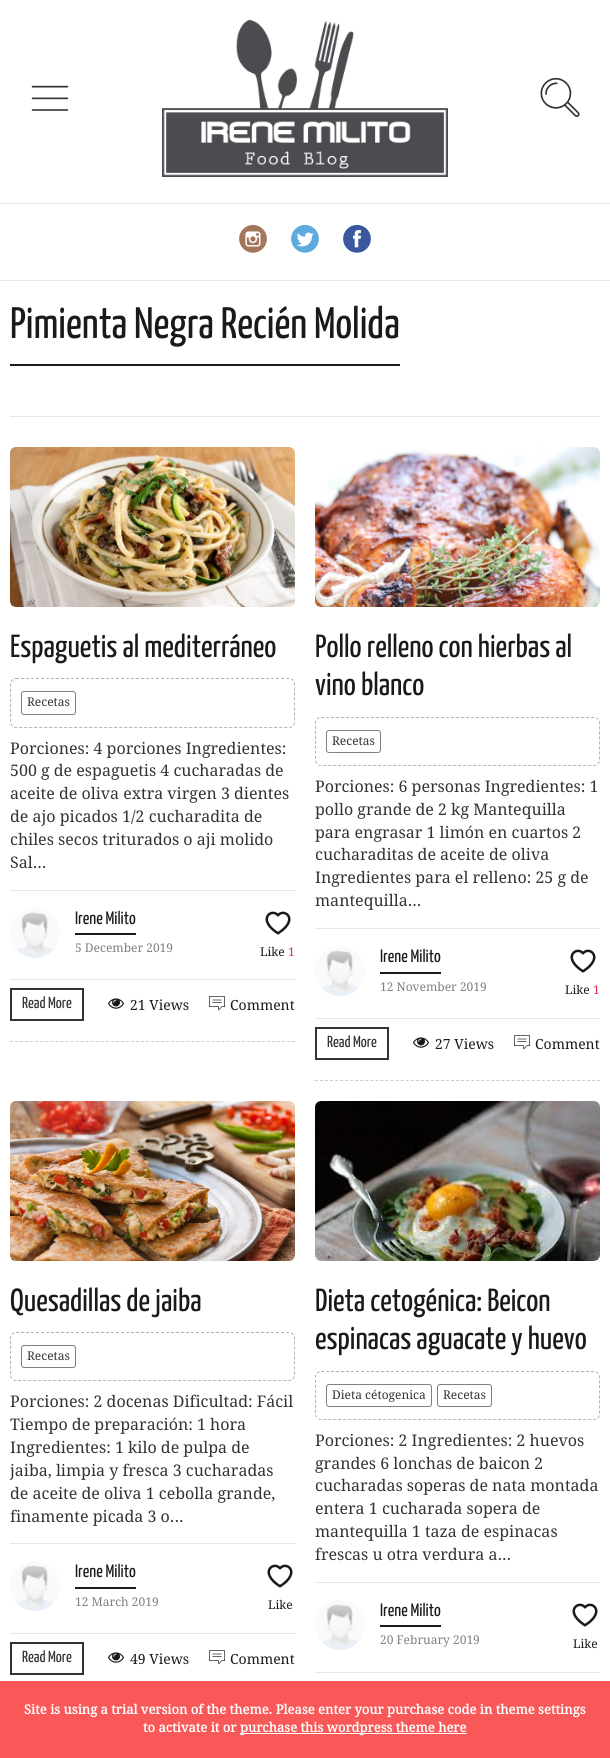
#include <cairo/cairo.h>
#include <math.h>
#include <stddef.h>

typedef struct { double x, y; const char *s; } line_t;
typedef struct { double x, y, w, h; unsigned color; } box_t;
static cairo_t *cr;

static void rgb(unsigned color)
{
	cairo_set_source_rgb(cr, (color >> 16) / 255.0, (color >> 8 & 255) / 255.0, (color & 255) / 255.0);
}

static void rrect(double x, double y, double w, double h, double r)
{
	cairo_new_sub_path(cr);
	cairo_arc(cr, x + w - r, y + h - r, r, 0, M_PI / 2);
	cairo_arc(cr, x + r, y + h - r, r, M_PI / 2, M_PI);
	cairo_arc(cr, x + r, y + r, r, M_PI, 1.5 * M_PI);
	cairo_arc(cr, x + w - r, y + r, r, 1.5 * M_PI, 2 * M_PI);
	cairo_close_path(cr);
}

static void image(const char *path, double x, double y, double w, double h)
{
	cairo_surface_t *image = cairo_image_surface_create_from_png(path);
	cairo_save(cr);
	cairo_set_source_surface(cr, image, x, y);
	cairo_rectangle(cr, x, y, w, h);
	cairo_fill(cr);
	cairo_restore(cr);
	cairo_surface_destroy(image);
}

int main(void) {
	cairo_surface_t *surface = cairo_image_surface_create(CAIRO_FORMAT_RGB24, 610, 1758);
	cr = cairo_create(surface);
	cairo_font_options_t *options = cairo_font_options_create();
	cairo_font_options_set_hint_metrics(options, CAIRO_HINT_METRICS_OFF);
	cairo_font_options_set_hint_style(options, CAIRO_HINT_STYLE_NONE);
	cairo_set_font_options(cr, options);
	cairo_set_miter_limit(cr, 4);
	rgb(0xffffff);
	cairo_paint(cr);
	image("img/1.png", 31, 85, 38, 26);
	image("img/2.png", 162, 20, 286, 157);
	image("img/3.png", 540, 77, 40, 40);
	rgb(0xe6e6e6);
	cairo_rectangle(cr, 0, 203, 610, 1);
	cairo_fill(cr);
	cairo_rectangle(cr, 0, 280, 610, 1);
	cairo_fill(cr);
	image("img/4.png", 239, 224, 28, 29);
	image("img/5.png", 291, 224, 28, 29);
	image("img/6.png", 343, 224, 28, 29);
	cairo_rectangle(cr, 10, 416, 590, 1);
	cairo_fill(cr);
	rgb(0x1a1a1a);
	cairo_rectangle(cr, 10, 364, 390, 2);
	cairo_fill(cr);
	cairo_new_path(cr);
	cairo_move_to(cr, 10, 1041.5);
	cairo_line_to(cr, 295, 1041.5);
	rgb(0xcccccc);
	cairo_set_line_width(cr, 1);
	cairo_set_dash(cr, (double[]){3, 2.04}, 2, 0);
	cairo_stroke(cr);
	image("img/7.png", 10, 447, 285, 160);
	cairo_new_path(cr);
	cairo_move_to(cr, 16, 678.5);
	cairo_line_to(cr, 289, 678.5);
	cairo_curve_to(cr, 292, 678.5, 294.5, 681, 294.5, 684);
	cairo_line_to(cr, 294.5, 722);
	cairo_curve_to(cr, 294.5, 725, 292, 727.5, 289, 727.5);
	cairo_line_to(cr, 16, 727.5);
	cairo_curve_to(cr, 13, 727.5, 10.5, 725, 10.5, 722);
	cairo_line_to(cr, 10.5, 684);
	cairo_curve_to(cr, 10.5, 681, 13, 678.5, 16, 678.5);
	cairo_close_path(cr);
	rgb(0xb3b3b3);
	cairo_set_dash(cr, (double[]){3, 2}, 2, 0);
	cairo_stroke(cr);
	rrect(21.5, 691.5, 54, 23, 2.5);
	rgb(0x808080);
	cairo_set_dash(cr, NULL, 0, 0);
	cairo_stroke(cr);
	rgb(0xe6e6e6);
	cairo_rectangle(cr, 10, 890, 285, 1);
	cairo_fill(cr);
	image("img/8.png", 10, 908, 50, 50);
	rgb(0x1a1a1a);
	cairo_rectangle(cr, 75, 933, 61, 2);
	cairo_fill(cr);
	image("img/9.png", 265, 911, 26, 24);
	rgb(0xe6e6e6);
	cairo_rectangle(cr, 10, 979, 285, 1);
	cairo_fill(cr);
	cairo_rectangle(cr, 11, 989, 72, 31);
	rgb(0x333333);
	cairo_set_line_width(cr, 2);
	cairo_stroke(cr);
	image("img/10.png", 108, 998, 16, 11);
	image("img/11.png", 209, 996, 16, 15);
	cairo_new_path(cr);
	cairo_move_to(cr, 315, 1080.5);
	cairo_line_to(cr, 600, 1080.5);
	rgb(0xcccccc);
	cairo_set_line_width(cr, 1);
	cairo_set_dash(cr, (double[]){3, 2.04}, 2, 0);
	cairo_stroke(cr);
	image("img/12.png", 315, 447, 285, 160);
	cairo_new_path(cr);
	cairo_move_to(cr, 321, 717.5);
	cairo_line_to(cr, 594, 717.5);
	cairo_curve_to(cr, 597, 717.5, 599.5, 720, 599.5, 723);
	cairo_line_to(cr, 599.5, 760);
	cairo_curve_to(cr, 599.5, 763, 597, 765.5, 594, 765.5);
	cairo_line_to(cr, 321, 765.5);
	cairo_curve_to(cr, 318, 765.5, 315.5, 763, 315.5, 760);
	cairo_line_to(cr, 315.5, 723);
	cairo_curve_to(cr, 315.5, 720, 318, 717.5, 321, 717.5);
	cairo_close_path(cr);
	rgb(0xb3b3b3);
	cairo_set_dash(cr, (double[]){3, 2}, 2, 0);
	cairo_stroke(cr);
	rrect(326.5, 730.5, 54, 22, 2.5);
	rgb(0x808080);
	cairo_set_dash(cr, NULL, 0, 0);
	cairo_stroke(cr);
	rgb(0xe6e6e6);
	cairo_rectangle(cr, 315, 928, 285, 1);
	cairo_fill(cr);
	image("img/8.png", 315, 946, 50, 50);
	rgb(0x1a1a1a);
	cairo_rectangle(cr, 380, 972, 61, 2);
	cairo_fill(cr);
	image("img/9.png", 570, 949, 26, 24);
	rgb(0xe6e6e6);
	cairo_rectangle(cr, 315, 1018, 285, 1);
	cairo_fill(cr);
	cairo_rectangle(cr, 316, 1028, 72, 31);
	rgb(0x333333);
	cairo_set_line_width(cr, 2);
	cairo_stroke(cr);
	image("img/10.png", 413, 1037, 16, 11);
	image("img/11.png", 514, 1035, 16, 15);
	image("img/13.png", 10, 1101, 285, 160);
	cairo_new_path(cr);
	cairo_move_to(cr, 16, 1332.5);
	cairo_line_to(cr, 289, 1332.5);
	cairo_curve_to(cr, 292, 1332.5, 294.5, 1335, 294.5, 1338);
	cairo_line_to(cr, 294.5, 1375);
	cairo_curve_to(cr, 294.5, 1378, 292, 1380.5, 289, 1380.5);
	cairo_line_to(cr, 16, 1380.5);
	cairo_curve_to(cr, 13, 1380.5, 10.5, 1378, 10.5, 1375);
	cairo_line_to(cr, 10.5, 1338);
	cairo_curve_to(cr, 10.5, 1335, 13, 1332.5, 16, 1332.5);
	cairo_close_path(cr);
	rgb(0xb3b3b3);
	cairo_set_line_width(cr, 1);
	cairo_set_dash(cr, (double[]){3, 2}, 2, 0);
	cairo_stroke(cr);
	rrect(21.5, 1345.5, 54, 22, 2.5);
	rgb(0x808080);
	cairo_set_dash(cr, NULL, 0, 0);
	cairo_stroke(cr);
	rgb(0xe6e6e6);
	cairo_rectangle(cr, 10, 1543, 285, 1);
	cairo_fill(cr);
	image("img/8.png", 10, 1561, 50, 50);
	rgb(0x1a1a1a);
	cairo_rectangle(cr, 75, 1587, 61, 2);
	cairo_fill(cr);
	image("img/9.png", 267, 1564, 26, 24);
	rgb(0xe6e6e6);
	cairo_rectangle(cr, 10, 1633, 285, 1);
	cairo_fill(cr);
	cairo_rectangle(cr, 11, 1643, 72, 31);
	rgb(0x333333);
	cairo_set_line_width(cr, 2);
	cairo_stroke(cr);
	image("img/10.png", 108, 1652, 16, 11);
	image("img/11.png", 209, 1650, 16, 15);
	image("img/14.png", 315, 1101, 285, 160);
	cairo_new_path(cr);
	cairo_move_to(cr, 321, 1371.5);
	cairo_line_to(cr, 594, 1371.5);
	cairo_curve_to(cr, 597, 1371.5, 599.5, 1374, 599.5, 1377);
	cairo_line_to(cr, 599.5, 1414);
	cairo_curve_to(cr, 599.5, 1417, 597, 1419.5, 594, 1419.5);
	cairo_line_to(cr, 321, 1419.5);
	cairo_curve_to(cr, 318, 1419.5, 315.5, 1417, 315.5, 1414);
	cairo_line_to(cr, 315.5, 1377);
	cairo_curve_to(cr, 315.5, 1374, 318, 1371.5, 321, 1371.5);
	cairo_close_path(cr);
	rgb(0xb3b3b3);
	cairo_set_line_width(cr, 1);
	cairo_set_dash(cr, (double[]){3, 2}, 2, 0);
	cairo_stroke(cr);
	rrect(326.5, 1384.5, 105, 22, 2.5);
	rgb(0x808080);
	cairo_set_dash(cr, NULL, 0, 0);
	cairo_stroke(cr);
	rrect(437.5, 1384.5, 54, 22, 2.5);
	cairo_stroke(cr);
	rgb(0xe6e6e6);
	cairo_rectangle(cr, 315, 1582, 285, 1);
	cairo_fill(cr);
	image("img/8.png", 315, 1600, 50, 50);
	rgb(0x1a1a1a);
	cairo_rectangle(cr, 380, 1625, 61, 2);
	cairo_fill(cr);
	image("img/9.png", 572, 1603, 26, 24);
	{
		static const box_t items[] = {
			{315, 1672, 285, 1, 0xe6e6e6},
			{0, 1681, 610, 77, 0xf95858},
			{240, 1733, 227, 1, 0xffffff},
		};
		for (size_t i = 0; i < sizeof items / sizeof *items; i++) {
			rgb(items[i].color);
			cairo_rectangle(cr, items[i].x, items[i].y, items[i].w, items[i].h);
			cairo_fill(cr);
		}
	}
	cairo_select_font_face(cr, "Yanone Kaffeesatz ExtraLight", CAIRO_FONT_SLANT_NORMAL, CAIRO_FONT_WEIGHT_NORMAL);
	cairo_set_font_size(cr, 44);
	rgb(0x1a1a1a);
	cairo_move_to(cr, 10, 338);
	cairo_show_text(cr, "Pimienta Negra Recién Molida");
	cairo_set_font_size(cr, 32);
	cairo_move_to(cr, 10, 657);
	cairo_show_text(cr, "Espaguetis al mediterráneo");
	cairo_select_font_face(cr, "Droid Serif", CAIRO_FONT_SLANT_NORMAL, CAIRO_FONT_WEIGHT_NORMAL);
	cairo_set_font_size(cr, 12);
	rgb(0x333333);
	cairo_move_to(cr, 27, 706);
	cairo_show_text(cr, "Recetas");
	cairo_set_font_size(cr, 16);
	{
		static const line_t items[] = {
			{10, 754, "Porciones: 4 porciones Ingredientes:"},
			{10, 776, "500 g de espaguetis 4 cucharadas de"},
			{10, 799, "aceite de oliva extra virgen 3 dientes"},
			{10, 822, "de ajo picados 1/2 cucharadita de"},
			{10, 845, "chiles secos triturados o aji molido"},
			{10, 868, "Sal..."},
		};
		for (size_t i = 0; i < sizeof items / sizeof *items; i++) {
			cairo_move_to(cr, items[i].x, items[i].y);
			cairo_show_text(cr, items[i].s);
		}
	}
	cairo_select_font_face(cr, "Yanone Kaffeesatz ExtraLight", CAIRO_FONT_SLANT_NORMAL, CAIRO_FONT_WEIGHT_NORMAL);
	cairo_set_font_size(cr, 18);
	rgb(0x1a1a1a);
	cairo_move_to(cr, 75, 924);
	cairo_show_text(cr, "Irene Milito");
	cairo_select_font_face(cr, "Droid Serif", CAIRO_FONT_SLANT_NORMAL, CAIRO_FONT_WEIGHT_NORMAL);
	cairo_set_font_size(cr, 12);
	rgb(0x808080);
	cairo_move_to(cr, 75, 952);
	cairo_show_text(cr, "5 December 2019");
	rgb(0x1a1a1a);
	cairo_move_to(cr, 260, 956);
	cairo_show_text(cr, "Like");
	rgb(0xd53452);
	cairo_move_to(cr, 288, 956);
	cairo_show_text(cr, "1");
	cairo_select_font_face(cr, "Yanone Kaffeesatz ExtraLight", CAIRO_FONT_SLANT_NORMAL, CAIRO_FONT_WEIGHT_NORMAL);
	cairo_set_font_size(cr, 16);
	rgb(0x333333);
	cairo_move_to(cr, 22, 1008);
	cairo_show_text(cr, "Read More");
	cairo_select_font_face(cr, "Droid Serif", CAIRO_FONT_SLANT_NORMAL, CAIRO_FONT_WEIGHT_NORMAL);
	cairo_set_font_size(cr, 14);
	rgb(0x1a1a1a);
	cairo_move_to(cr, 130, 1010);
	cairo_show_text(cr, "21 Views");
	cairo_move_to(cr, 230, 1010);
	cairo_show_text(cr, "Comment");
	cairo_select_font_face(cr, "Yanone Kaffeesatz ExtraLight", CAIRO_FONT_SLANT_NORMAL, CAIRO_FONT_WEIGHT_NORMAL);
	cairo_set_font_size(cr, 32);
	cairo_move_to(cr, 315, 657);
	cairo_show_text(cr, "Pollo relleno con hierbas al");
	cairo_move_to(cr, 315, 695);
	cairo_show_text(cr, "vino blanco");
	cairo_select_font_face(cr, "Droid Serif", CAIRO_FONT_SLANT_NORMAL, CAIRO_FONT_WEIGHT_NORMAL);
	cairo_set_font_size(cr, 12);
	rgb(0x333333);
	cairo_move_to(cr, 332, 745);
	cairo_show_text(cr, "Recetas");
	cairo_set_font_size(cr, 16);
	{
		static const line_t items[] = {
			{315, 792, "Porciones: 6 personas Ingredientes: 1"},
			{315, 815, "pollo grande de 2 kg Mantequilla"},
			{315, 838, "para engrasar 1 limón en cuartos 2"},
			{315, 860, "cucharaditas de aceite de oliva"},
			{315, 883, "Ingredientes para el relleno: 25 g de"},
			{315, 906, "mantequilla..."},
		};
		for (size_t i = 0; i < sizeof items / sizeof *items; i++) {
			cairo_move_to(cr, items[i].x, items[i].y);
			cairo_show_text(cr, items[i].s);
		}
	}
	cairo_select_font_face(cr, "Yanone Kaffeesatz ExtraLight", CAIRO_FONT_SLANT_NORMAL, CAIRO_FONT_WEIGHT_NORMAL);
	cairo_set_font_size(cr, 18);
	rgb(0x1a1a1a);
	cairo_move_to(cr, 380, 962);
	cairo_show_text(cr, "Irene Milito");
	cairo_select_font_face(cr, "Droid Serif", CAIRO_FONT_SLANT_NORMAL, CAIRO_FONT_WEIGHT_NORMAL);
	cairo_set_font_size(cr, 12);
	rgb(0x808080);
	cairo_move_to(cr, 380, 991);
	cairo_show_text(cr, "12 November 2019");
	rgb(0x1a1a1a);
	cairo_move_to(cr, 565, 994);
	cairo_show_text(cr, "Like");
	rgb(0xd53452);
	cairo_move_to(cr, 593, 994);
	cairo_show_text(cr, "1");
	cairo_select_font_face(cr, "Yanone Kaffeesatz ExtraLight", CAIRO_FONT_SLANT_NORMAL, CAIRO_FONT_WEIGHT_NORMAL);
	cairo_set_font_size(cr, 16);
	rgb(0x333333);
	cairo_move_to(cr, 327, 1047);
	cairo_show_text(cr, "Read More");
	cairo_select_font_face(cr, "Droid Serif", CAIRO_FONT_SLANT_NORMAL, CAIRO_FONT_WEIGHT_NORMAL);
	cairo_set_font_size(cr, 14);
	rgb(0x1a1a1a);
	cairo_move_to(cr, 435, 1049);
	cairo_show_text(cr, "27 Views");
	cairo_move_to(cr, 535, 1049);
	cairo_show_text(cr, "Comment");
	cairo_select_font_face(cr, "Yanone Kaffeesatz ExtraLight", CAIRO_FONT_SLANT_NORMAL, CAIRO_FONT_WEIGHT_NORMAL);
	cairo_set_font_size(cr, 32);
	cairo_move_to(cr, 10, 1311);
	cairo_show_text(cr, "Quesadillas de jaiba");
	cairo_select_font_face(cr, "Droid Serif", CAIRO_FONT_SLANT_NORMAL, CAIRO_FONT_WEIGHT_NORMAL);
	cairo_set_font_size(cr, 12);
	rgb(0x333333);
	cairo_move_to(cr, 27, 1360);
	cairo_show_text(cr, "Recetas");
	cairo_set_font_size(cr, 16);
	{
		static const line_t items[] = {
			{10, 1407, "Porciones: 2 docenas Dificultad: Fácil"},
			{10, 1430, "Tiempo de preparación: 1 hora"},
			{10, 1453, "Ingredientes: 1 kilo de pulpa de"},
			{10, 1476, "jaiba, limpia y fresca 3 cucharadas"},
			{10, 1499, "de aceite de oliva 1 cebolla grande,"},
			{10, 1522, "finamente picada 3 o..."},
		};
		for (size_t i = 0; i < sizeof items / sizeof *items; i++) {
			cairo_move_to(cr, items[i].x, items[i].y);
			cairo_show_text(cr, items[i].s);
		}
	}
	cairo_select_font_face(cr, "Yanone Kaffeesatz ExtraLight", CAIRO_FONT_SLANT_NORMAL, CAIRO_FONT_WEIGHT_NORMAL);
	cairo_set_font_size(cr, 18);
	rgb(0x1a1a1a);
	cairo_move_to(cr, 75, 1577);
	cairo_show_text(cr, "Irene Milito");
	cairo_select_font_face(cr, "Droid Serif", CAIRO_FONT_SLANT_NORMAL, CAIRO_FONT_WEIGHT_NORMAL);
	cairo_set_font_size(cr, 12);
	rgb(0x808080);
	cairo_move_to(cr, 75, 1606);
	cairo_show_text(cr, "12 March 2019");
	rgb(0x1a1a1a);
	cairo_move_to(cr, 268, 1609);
	cairo_show_text(cr, "Like");
	cairo_select_font_face(cr, "Yanone Kaffeesatz ExtraLight", CAIRO_FONT_SLANT_NORMAL, CAIRO_FONT_WEIGHT_NORMAL);
	cairo_set_font_size(cr, 16);
	rgb(0x333333);
	cairo_move_to(cr, 22, 1662);
	cairo_show_text(cr, "Read More");
	cairo_select_font_face(cr, "Droid Serif", CAIRO_FONT_SLANT_NORMAL, CAIRO_FONT_WEIGHT_NORMAL);
	cairo_set_font_size(cr, 14);
	rgb(0x1a1a1a);
	cairo_move_to(cr, 130, 1664);
	cairo_show_text(cr, "49 Views");
	cairo_move_to(cr, 230, 1664);
	cairo_show_text(cr, "Comment");
	cairo_select_font_face(cr, "Yanone Kaffeesatz ExtraLight", CAIRO_FONT_SLANT_NORMAL, CAIRO_FONT_WEIGHT_NORMAL);
	cairo_set_font_size(cr, 32);
	cairo_move_to(cr, 315, 1311);
	cairo_show_text(cr, "Dieta cetogénica: Beicon");
	cairo_move_to(cr, 315, 1349);
	cairo_show_text(cr, "espinacas aguacate y huevo");
	cairo_select_font_face(cr, "Droid Serif", CAIRO_FONT_SLANT_NORMAL, CAIRO_FONT_WEIGHT_NORMAL);
	cairo_set_font_size(cr, 12);
	rgb(0x333333);
	cairo_move_to(cr, 332, 1399);
	cairo_show_text(cr, "Dieta cétogenica");
	cairo_move_to(cr, 443, 1399);
	cairo_show_text(cr, "Recetas");
	cairo_set_font_size(cr, 16);
	{
		static const line_t items[] = {
			{315, 1446, "Porciones: 2 Ingredientes: 2 huevos"},
			{315, 1469, "grandes 6 lonchas de baicon 2"},
			{315, 1491, "cucharadas soperas de nata montada"},
			{315, 1514, "entera 1 cucharada sopera de"},
			{315, 1537, "mantequilla 1 taza de espinacas"},
			{315, 1560, "frescas u otra verdura a..."},
		};
		for (size_t i = 0; i < sizeof items / sizeof *items; i++) {
			cairo_move_to(cr, items[i].x, items[i].y);
			cairo_show_text(cr, items[i].s);
		}
	}
	cairo_select_font_face(cr, "Yanone Kaffeesatz ExtraLight", CAIRO_FONT_SLANT_NORMAL, CAIRO_FONT_WEIGHT_NORMAL);
	cairo_set_font_size(cr, 18);
	rgb(0x1a1a1a);
	cairo_move_to(cr, 380, 1616);
	cairo_show_text(cr, "Irene Milito");
	cairo_select_font_face(cr, "Droid Serif", CAIRO_FONT_SLANT_NORMAL, CAIRO_FONT_WEIGHT_NORMAL);
	cairo_set_font_size(cr, 12);
	rgb(0x808080);
	cairo_move_to(cr, 380, 1644);
	cairo_show_text(cr, "20 February 2019");
	rgb(0x1a1a1a);
	cairo_move_to(cr, 573, 1648);
	cairo_show_text(cr, "Like");
	cairo_select_font_face(cr, "Droid Serif", CAIRO_FONT_SLANT_NORMAL, CAIRO_FONT_WEIGHT_BOLD);
	cairo_set_font_size(cr, 13);
	rgb(0xffffff);
	{
		static const line_t items[] = {
			{24, 1714, "Site is using a trial version of the theme. Please enter your purchase code in theme settings"},
			{143, 1732, "to activate it or"},
			{240, 1732, "purchase this wordpress theme here"},
		};
		for (size_t i = 0; i < sizeof items / sizeof *items; i++) {
			cairo_move_to(cr, items[i].x, items[i].y);
			cairo_show_text(cr, items[i].s);
		}
	}
	cairo_surface_write_to_png(surface, "page.png");
	cairo_font_options_destroy(options);
	cairo_destroy(cr);
	cairo_surface_destroy(surface);
	return 0;
}
